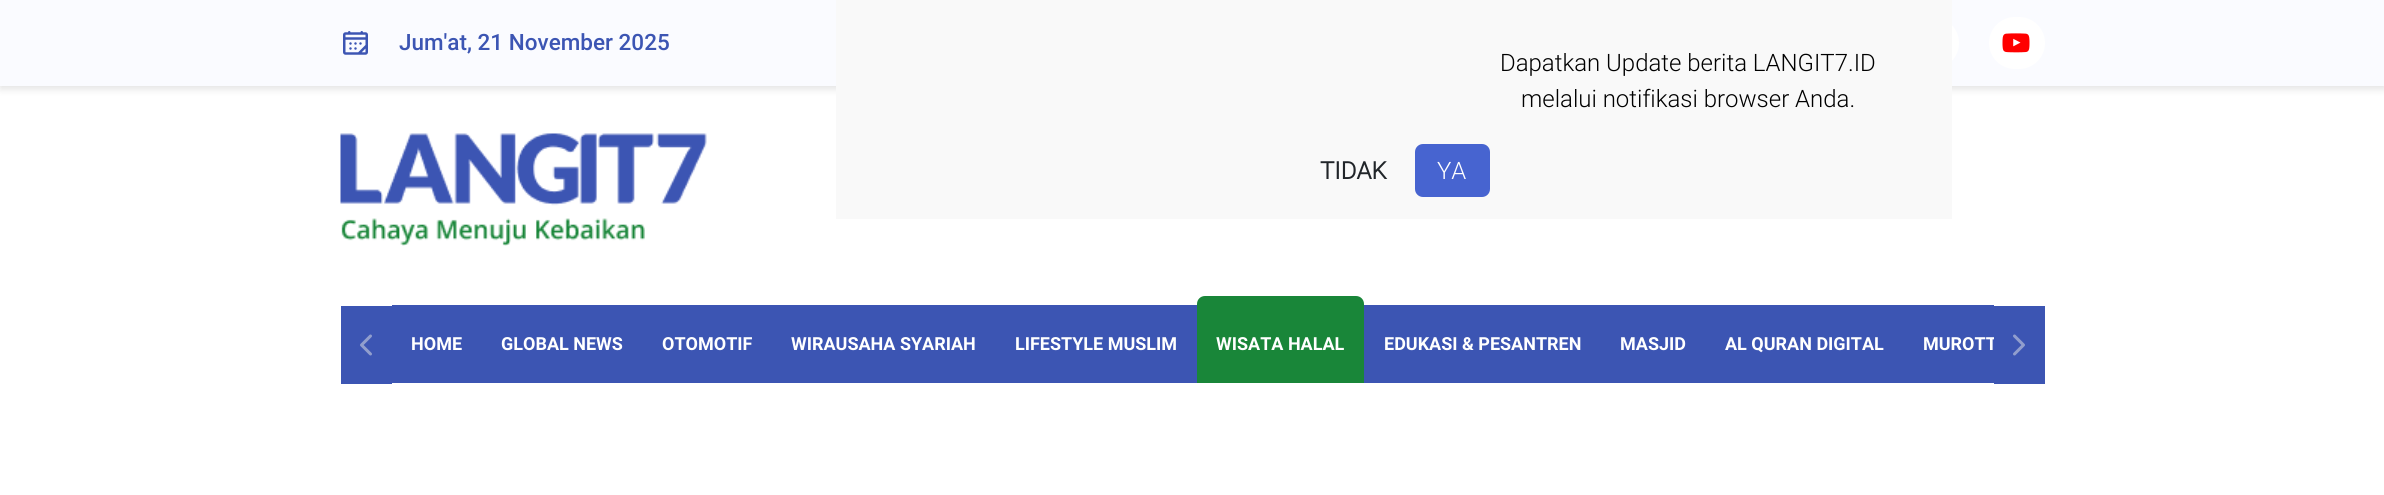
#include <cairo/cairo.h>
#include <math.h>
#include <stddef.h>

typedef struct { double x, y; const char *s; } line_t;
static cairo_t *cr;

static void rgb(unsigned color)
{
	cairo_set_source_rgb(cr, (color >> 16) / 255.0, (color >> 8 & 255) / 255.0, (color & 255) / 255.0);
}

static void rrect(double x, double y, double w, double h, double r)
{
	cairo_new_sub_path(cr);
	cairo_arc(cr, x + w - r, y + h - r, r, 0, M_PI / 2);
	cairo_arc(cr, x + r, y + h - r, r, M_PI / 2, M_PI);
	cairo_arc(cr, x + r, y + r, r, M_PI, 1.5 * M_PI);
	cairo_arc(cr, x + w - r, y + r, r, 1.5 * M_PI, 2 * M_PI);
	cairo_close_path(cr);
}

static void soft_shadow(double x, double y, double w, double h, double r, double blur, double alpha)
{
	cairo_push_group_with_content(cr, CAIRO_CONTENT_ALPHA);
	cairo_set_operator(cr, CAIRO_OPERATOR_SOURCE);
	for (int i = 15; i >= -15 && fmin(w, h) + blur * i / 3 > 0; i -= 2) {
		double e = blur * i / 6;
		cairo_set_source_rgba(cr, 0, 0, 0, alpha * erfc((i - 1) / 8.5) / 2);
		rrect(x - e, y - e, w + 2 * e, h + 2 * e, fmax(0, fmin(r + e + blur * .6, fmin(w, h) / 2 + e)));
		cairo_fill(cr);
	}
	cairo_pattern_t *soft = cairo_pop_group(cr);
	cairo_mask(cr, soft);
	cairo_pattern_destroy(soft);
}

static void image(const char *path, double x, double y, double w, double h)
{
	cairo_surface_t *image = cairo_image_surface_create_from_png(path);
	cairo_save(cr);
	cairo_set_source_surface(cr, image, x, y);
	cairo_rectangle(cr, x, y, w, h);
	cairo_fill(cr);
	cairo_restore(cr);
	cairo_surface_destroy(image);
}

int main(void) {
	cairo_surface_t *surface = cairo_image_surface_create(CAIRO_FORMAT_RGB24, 2384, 495);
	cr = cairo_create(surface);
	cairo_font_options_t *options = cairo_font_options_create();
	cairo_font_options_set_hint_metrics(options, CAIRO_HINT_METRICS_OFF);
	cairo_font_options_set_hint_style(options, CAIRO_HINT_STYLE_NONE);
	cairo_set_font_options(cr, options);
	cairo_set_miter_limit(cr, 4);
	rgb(0xffffff);
	cairo_paint(cr);
	rgb(0x414141);
	soft_shadow(0, 3, 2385, 86, 0, 4, 0.15);
	rgb(0xfafbff);
	cairo_rectangle(cr, 0, 0, 2384, 86);
	cairo_fill(cr);
	image("img/1.png", 343, 31, 25, 24);
	rgb(0xffffff);
	rrect(1904, 17, 55, 52, 26);
	cairo_fill(cr);
	rrect(1989, 17, 56, 52, 26);
	cairo_fill(cr);
	image("img/2.png", 2002, 33, 28, 20);
	rgb(0xf9f9f9);
	cairo_rectangle(cr, 836, 0, 1116, 219);
	cairo_fill(cr);
	rgb(0x4764d0);
	rrect(1415, 144, 75, 53, 8);
	cairo_fill(cr);
	image("img/3.png", 340, 133, 367, 113);
	rgb(0x3c55b3);
	cairo_rectangle(cr, 341, 306, 51, 78);
	cairo_fill(cr);
	cairo_new_path(cr);
	cairo_move_to(cr, 370.5, 354);
	cairo_line_to(cr, 361.5, 345);
	cairo_line_to(cr, 370.5, 336);
	rgb(0x919ecd);
	cairo_set_line_width(cr, 3);
	cairo_set_line_cap(cr, CAIRO_LINE_CAP_ROUND);
	cairo_set_line_join(cr, CAIRO_LINE_JOIN_ROUND);
	cairo_stroke(cr);
	rgb(0x3c55b3);
	cairo_rectangle(cr, 392, 305, 805, 78);
	cairo_fill(cr);
	rgb(0x198639);
	cairo_new_path(cr);
	cairo_move_to(cr, 1205, 296);
	cairo_line_to(cr, 1356, 296);
	cairo_curve_to(cr, 1360.5, 296, 1364, 299.5, 1364, 304);
	cairo_line_to(cr, 1364, 383);
	cairo_line_to(cr, 1197, 383);
	cairo_line_to(cr, 1197, 304);
	cairo_curve_to(cr, 1197, 299.5, 1200.5, 296, 1205, 296);
	cairo_close_path(cr);
	cairo_fill(cr);
	rgb(0x3c55b3);
	cairo_rectangle(cr, 1364, 305, 630, 78);
	cairo_fill(cr);
	cairo_rectangle(cr, 1994, 306, 51, 78);
	cairo_fill(cr);
	cairo_new_path(cr);
	cairo_move_to(cr, 2014.5, 336);
	cairo_line_to(cr, 2023.5, 345);
	cairo_line_to(cr, 2014.5, 354);
	rgb(0x919ecd);
	cairo_stroke(cr);
	cairo_select_font_face(cr, "Roboto Medium", CAIRO_FONT_SLANT_NORMAL, CAIRO_FONT_WEIGHT_NORMAL);
	cairo_set_font_size(cr, 22.5);
	rgb(0x3c55b3);
	cairo_move_to(cr, 399, 50);
	cairo_show_text(cr, "Jum'at, 21 November 2025");
	cairo_select_font_face(cr, "Roboto Light", CAIRO_FONT_SLANT_NORMAL, CAIRO_FONT_WEIGHT_NORMAL);
	cairo_set_font_size(cr, 24);
	rgb(0x000000);
	cairo_move_to(cr, 1500, 71);
	cairo_show_text(cr, "Dapatkan Update berita LANGIT7.ID");
	cairo_move_to(cr, 1521, 107);
	cairo_show_text(cr, "melalui notifikasi browser Anda.");
	cairo_select_font_face(cr, "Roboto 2", CAIRO_FONT_SLANT_NORMAL, CAIRO_FONT_WEIGHT_BOLD);
	rgb(0x212529);
	cairo_move_to(cr, 1320, 179);
	cairo_show_text(cr, "TIDAK");
	cairo_select_font_face(cr, "Roboto Light", CAIRO_FONT_SLANT_NORMAL, CAIRO_FONT_WEIGHT_NORMAL);
	rgb(0xffffff);
	cairo_move_to(cr, 1437, 179);
	cairo_show_text(cr, "YA");
	cairo_select_font_face(cr, "Roboto", CAIRO_FONT_SLANT_NORMAL, CAIRO_FONT_WEIGHT_BOLD);
	cairo_set_font_size(cr, 18);
	{
		static const line_t items[] = {
			{411, 350, "HOME"},
			{501, 350, "GLOBAL NEWS"},
			{662, 350, "OTOMOTIF"},
			{791, 350, "WIRAUSAHA SYARIAH"},
			{1015, 350, "LIFESTYLE MUSLIM"},
			{1216, 350, "WISATA HALAL"},
			{1384, 350, "EDUKASI & PESANTREN"},
			{1620, 350, "MASJID"},
			{1725, 350, "AL QURAN DIGITAL"},
		};
		for (size_t i = 0; i < sizeof items / sizeof *items; i++) {
			cairo_move_to(cr, items[i].x, items[i].y);
			cairo_show_text(cr, items[i].s);
		}
	}
	cairo_save(cr);
	cairo_rectangle(cr, 392, 294, 1602, 96);
	cairo_clip(cr);
	cairo_move_to(cr, 1923, 350);
	cairo_show_text(cr, "MUROTT");
	cairo_restore(cr);
	cairo_surface_write_to_png(surface, "page.png");
	cairo_font_options_destroy(options);
	cairo_destroy(cr);
	cairo_surface_destroy(surface);
	return 0;
}
